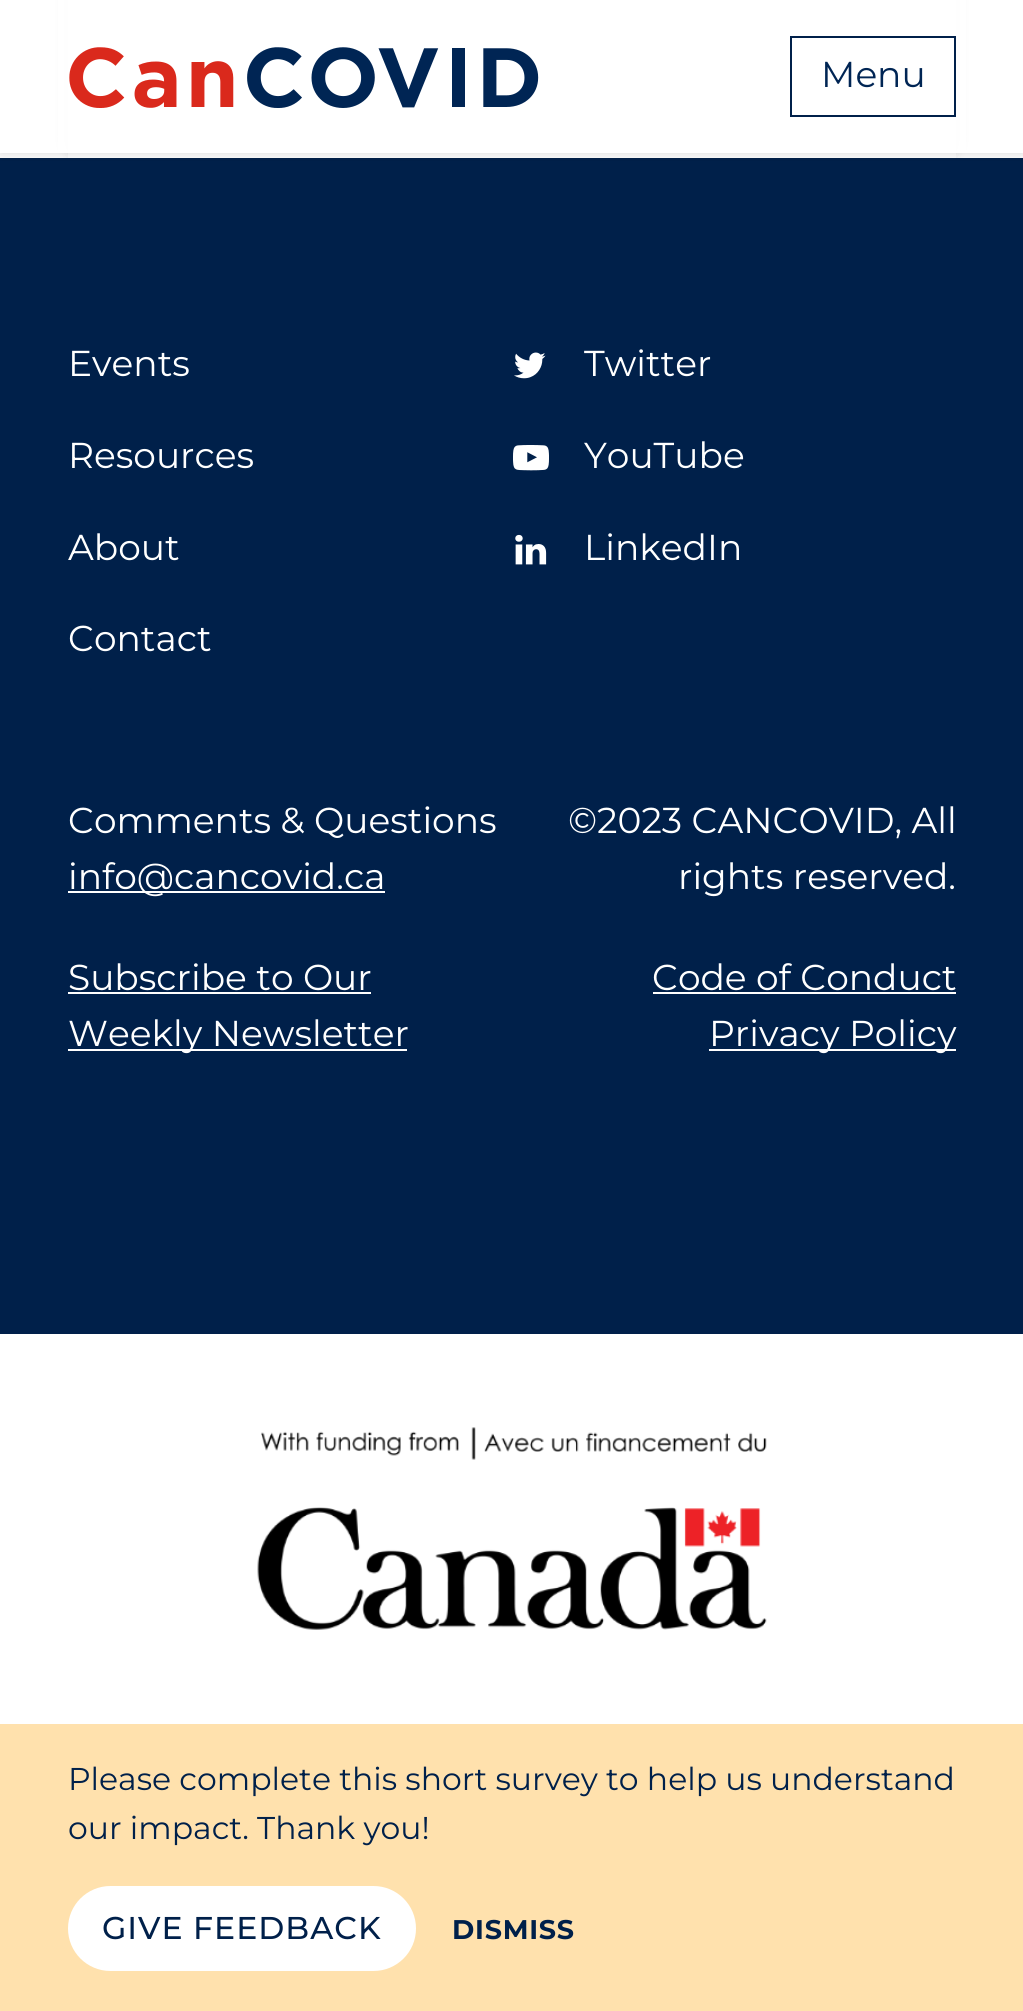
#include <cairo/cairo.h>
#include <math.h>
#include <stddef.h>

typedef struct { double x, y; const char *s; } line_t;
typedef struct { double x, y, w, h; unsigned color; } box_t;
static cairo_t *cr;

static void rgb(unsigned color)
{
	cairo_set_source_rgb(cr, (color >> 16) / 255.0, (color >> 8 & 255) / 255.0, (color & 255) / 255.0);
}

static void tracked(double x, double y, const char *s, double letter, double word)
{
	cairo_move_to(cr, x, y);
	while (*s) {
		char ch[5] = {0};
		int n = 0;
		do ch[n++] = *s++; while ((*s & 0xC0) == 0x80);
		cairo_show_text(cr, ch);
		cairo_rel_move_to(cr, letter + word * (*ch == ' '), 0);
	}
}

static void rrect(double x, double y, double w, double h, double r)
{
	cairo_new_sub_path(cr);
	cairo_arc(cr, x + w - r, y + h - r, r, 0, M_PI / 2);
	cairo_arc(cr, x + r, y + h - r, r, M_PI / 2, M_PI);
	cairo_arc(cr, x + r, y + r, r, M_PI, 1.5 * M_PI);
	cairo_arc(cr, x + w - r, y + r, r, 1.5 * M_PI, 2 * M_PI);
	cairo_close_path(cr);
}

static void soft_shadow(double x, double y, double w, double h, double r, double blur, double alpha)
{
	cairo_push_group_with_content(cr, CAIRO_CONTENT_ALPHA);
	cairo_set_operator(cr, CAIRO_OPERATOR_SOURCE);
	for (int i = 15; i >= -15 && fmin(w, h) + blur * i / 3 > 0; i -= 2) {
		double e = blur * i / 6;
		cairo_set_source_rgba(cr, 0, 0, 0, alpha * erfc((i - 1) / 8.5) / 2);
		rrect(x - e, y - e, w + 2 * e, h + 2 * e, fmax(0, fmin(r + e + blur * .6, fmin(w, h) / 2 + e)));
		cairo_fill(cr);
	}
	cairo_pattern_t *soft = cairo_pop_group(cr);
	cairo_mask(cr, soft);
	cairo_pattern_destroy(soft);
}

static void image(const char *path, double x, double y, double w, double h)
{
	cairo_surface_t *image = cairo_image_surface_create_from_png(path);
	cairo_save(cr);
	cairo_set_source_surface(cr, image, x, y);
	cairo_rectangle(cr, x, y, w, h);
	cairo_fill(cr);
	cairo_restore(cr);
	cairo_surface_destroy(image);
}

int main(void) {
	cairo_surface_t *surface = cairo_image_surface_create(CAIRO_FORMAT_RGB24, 1023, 2011);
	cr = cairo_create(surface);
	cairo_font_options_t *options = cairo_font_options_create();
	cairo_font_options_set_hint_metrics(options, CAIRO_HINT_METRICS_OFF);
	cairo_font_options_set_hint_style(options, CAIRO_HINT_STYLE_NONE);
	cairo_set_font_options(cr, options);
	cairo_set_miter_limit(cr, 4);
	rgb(0xffffff);
	cairo_paint(cr);
	rgb(0x000000);
	soft_shadow(68, -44, 888, 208, 23, 7, 0.16);
	rgb(0xffffff);
	cairo_rectangle(cr, 68, 0, 888, 158);
	cairo_fill(cr);
	rgb(0x00204a);
	cairo_rectangle(cr, 0, 158, 1023, 1176);
	cairo_fill(cr);
	cairo_save(cr);
	cairo_rectangle(cr, 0, 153, 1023, 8);
	cairo_clip(cr);
	rgb(0x000000);
	soft_shadow(0, 0, 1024, 153, 0, 7, 0.16);
	cairo_restore(cr);
	cairo_set_source_rgba(cr, 1, 1, 1, 0.95);
	cairo_rectangle(cr, 58, 0, 908, 153);
	cairo_fill(cr);
	image("img/1.png", 69, 47, 470, 61);
	cairo_rectangle(cr, 791, 37, 164, 79);
	rgb(0x00204a);
	cairo_stroke(cr);
	image("img/2.png", 514, 352, 32, 27);
	image("img/3.png", 513, 445, 36, 26);
	image("img/4.png", 515, 534, 32, 31);
	{
		static const box_t items[] = {
			{68, 891, 317, 2, 0xffffff},
			{68, 992, 303, 2, 0xffffff},
			{68, 1049, 339, 2, 0xffffff},
			{653, 992, 303, 2, 0xffffff},
			{709, 1049, 247, 2, 0xffffff},
		};
		for (size_t i = 0; i < sizeof items / sizeof *items; i++) {
			rgb(items[i].color);
			cairo_rectangle(cr, items[i].x, items[i].y, items[i].w, items[i].h);
			cairo_fill(cr);
		}
	}
	image("img/5.png", 257, 1427, 510, 203);
	rgb(0xffe1ad);
	cairo_rectangle(cr, 0, 1724, 1023, 287);
	cairo_fill(cr);
	rgb(0xffffff);
	rrect(68, 1886, 348, 85, 42.5);
	cairo_fill(cr);
	cairo_select_font_face(cr, "Montserrat", CAIRO_FONT_SLANT_NORMAL, CAIRO_FONT_WEIGHT_NORMAL);
	cairo_set_font_size(cr, 36);
	rgb(0x002554);
	cairo_move_to(cr, 821, 87);
	cairo_show_text(cr, "Menu");
	rgb(0xffffff);
	{
		static const line_t items[] = {
			{68, 376, "Events"},
			{68, 468, "Resources"},
			{68, 560, "About"},
			{68, 651, "Contact"},
			{584, 376, "Twitter"},
			{584, 468, "YouTube"},
			{584, 560, "LinkedIn"},
			{68, 833, "Comments & Questions"},
			{68, 889, "info@cancovid.ca"},
			{68, 990, "Subscribe to Our"},
			{68, 1046, "Weekly Newsletter"},
			{568, 833, "©2023 CANCOVID, All"},
			{678, 889, "rights reserved."},
			{652, 990, "Code of Conduct"},
			{709, 1046, "Privacy Policy"},
		};
		for (size_t i = 0; i < sizeof items / sizeof *items; i++) {
			cairo_move_to(cr, items[i].x, items[i].y);
			cairo_show_text(cr, items[i].s);
		}
	}
	cairo_set_font_size(cr, 31.5);
	rgb(0x00204a);
	cairo_move_to(cr, 68, 1790);
	cairo_show_text(cr, "Please complete this short survey to help us understand");
	cairo_move_to(cr, 68, 1839);
	cairo_show_text(cr, "our impact. Thank you!");
	cairo_select_font_face(cr, "Montserrat Medium", CAIRO_FONT_SLANT_NORMAL, CAIRO_FONT_WEIGHT_NORMAL);
	tracked(102, 1939, "GIVE FEEDBACK", 1, 0);
	cairo_select_font_face(cr, "Montserrat", CAIRO_FONT_SLANT_NORMAL, CAIRO_FONT_WEIGHT_BOLD);
	cairo_set_font_size(cr, 27);
	tracked(452, 1939, "DISMISS", 0.75, 0);
	cairo_surface_write_to_png(surface, "page.png");
	cairo_font_options_destroy(options);
	cairo_destroy(cr);
	cairo_surface_destroy(surface);
	return 0;
}
